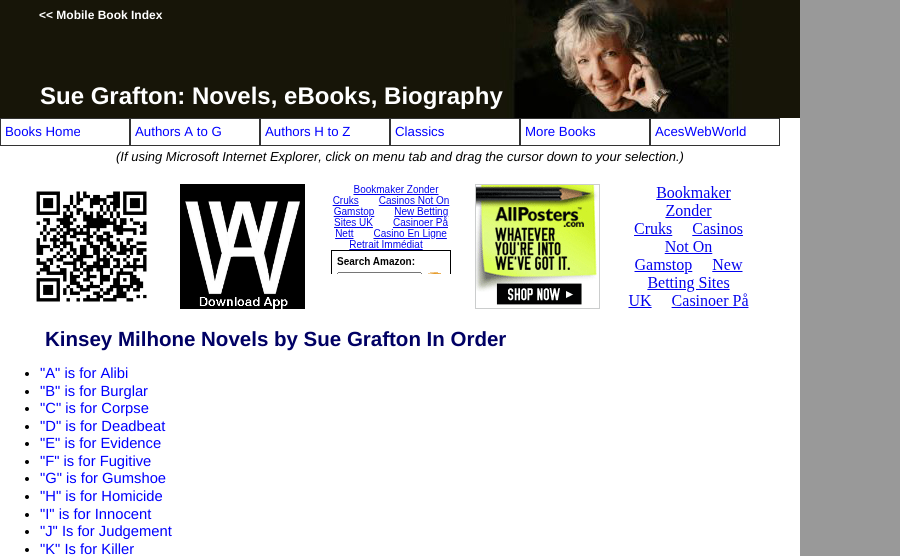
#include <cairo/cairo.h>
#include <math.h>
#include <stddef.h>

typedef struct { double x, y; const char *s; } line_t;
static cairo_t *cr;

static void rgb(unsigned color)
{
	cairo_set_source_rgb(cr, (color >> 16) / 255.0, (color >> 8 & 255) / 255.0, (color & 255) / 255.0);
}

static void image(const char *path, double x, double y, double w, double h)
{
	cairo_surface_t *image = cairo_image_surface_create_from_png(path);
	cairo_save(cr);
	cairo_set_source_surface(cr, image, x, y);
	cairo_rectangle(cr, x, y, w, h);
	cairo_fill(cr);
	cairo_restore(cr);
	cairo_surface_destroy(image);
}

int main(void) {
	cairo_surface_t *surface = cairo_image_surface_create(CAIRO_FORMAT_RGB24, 900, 556);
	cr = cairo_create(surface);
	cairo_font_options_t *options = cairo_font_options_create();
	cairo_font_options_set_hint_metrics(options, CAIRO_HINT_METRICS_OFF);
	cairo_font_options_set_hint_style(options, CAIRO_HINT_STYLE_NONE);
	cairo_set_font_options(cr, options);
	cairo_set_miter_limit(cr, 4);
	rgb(0x999999);
	cairo_paint(cr);
	image("img/1.png", 0, 0, 800, 118);
	rgb(0xffffff);
	cairo_rectangle(cr, 0, 118, 800, 438);
	cairo_fill(cr);
	cairo_rectangle(cr, 0.5, 118.5, 129, 27);
	rgb(0x333333);
	cairo_set_line_width(cr, 1);
	cairo_stroke(cr);
	cairo_rectangle(cr, 130.5, 118.5, 129, 27);
	cairo_stroke(cr);
	cairo_rectangle(cr, 260.5, 118.5, 129, 27);
	cairo_stroke(cr);
	cairo_rectangle(cr, 390.5, 118.5, 129, 27);
	cairo_stroke(cr);
	cairo_rectangle(cr, 520.5, 118.5, 129, 27);
	cairo_stroke(cr);
	cairo_rectangle(cr, 650.5, 118.5, 129, 27);
	cairo_stroke(cr);
	image("img/2.png", 36, 191, 111, 111);
	image("img/3.png", 180, 184, 125, 125);
	image("img/4.png", 331, 185, 120, 89);
	image("img/5.png", 475, 184, 125, 125);
	image("img/6.png", 628, 186, 121, 122);
	rgb(0x000000);
	cairo_arc(cr, 27, 374, 2, 0, 2 * M_PI);
	cairo_fill(cr);
	cairo_arc(cr, 27, 392, 2, 0, 2 * M_PI);
	cairo_fill(cr);
	cairo_arc(cr, 27, 409, 2, 0, 2 * M_PI);
	cairo_fill(cr);
	cairo_arc(cr, 27, 427, 2, 0, 2 * M_PI);
	cairo_fill(cr);
	cairo_arc(cr, 27, 444, 2, 0, 2 * M_PI);
	cairo_fill(cr);
	cairo_arc(cr, 27, 462, 2, 0, 2 * M_PI);
	cairo_fill(cr);
	cairo_arc(cr, 27, 479, 2, 0, 2 * M_PI);
	cairo_fill(cr);
	cairo_arc(cr, 27, 497, 2, 0, 2 * M_PI);
	cairo_fill(cr);
	cairo_arc(cr, 27, 515, 2, 0, 2 * M_PI);
	cairo_fill(cr);
	cairo_arc(cr, 27, 532, 2, 0, 2 * M_PI);
	cairo_fill(cr);
	cairo_arc(cr, 27, 550, 2, 0, 2 * M_PI);
	cairo_fill(cr);
	cairo_select_font_face(cr, "Liberation Sans", CAIRO_FONT_SLANT_NORMAL, CAIRO_FONT_WEIGHT_BOLD);
	cairo_set_font_size(cr, 12);
	rgb(0xffffff);
	cairo_move_to(cr, 39, 19);
	cairo_show_text(cr, "<< Mobile Book Index");
	cairo_set_font_size(cr, 24);
	cairo_move_to(cr, 40, 104);
	cairo_show_text(cr, "Sue Grafton: Novels, eBooks, Biography");
	cairo_select_font_face(cr, "Liberation Sans", CAIRO_FONT_SLANT_NORMAL, CAIRO_FONT_WEIGHT_NORMAL);
	cairo_set_font_size(cr, 13.25);
	rgb(0x0000ff);
	{
		static const line_t items[] = {
			{5, 136, "Books Home"},
			{135, 136, "Authors A to G"},
			{265, 136, "Authors H to Z"},
			{395, 136, "Classics"},
			{525, 136, "More Books"},
			{655, 136, "AcesWebWorld"},
		};
		for (size_t i = 0; i < sizeof items / sizeof *items; i++) {
			cairo_move_to(cr, items[i].x, items[i].y);
			cairo_show_text(cr, items[i].s);
		}
	}
	cairo_select_font_face(cr, "Liberation Sans", CAIRO_FONT_SLANT_ITALIC, CAIRO_FONT_WEIGHT_NORMAL);
	cairo_set_font_size(cr, 13);
	rgb(0x000000);
	cairo_move_to(cr, 116, 161);
	cairo_show_text(cr, "(If using Microsoft Internet Explorer, click on menu tab and drag the cursor down to your selection.)");
	cairo_select_font_face(cr, "Liberation Sans", CAIRO_FONT_SLANT_NORMAL, CAIRO_FONT_WEIGHT_BOLD);
	cairo_set_font_size(cr, 20.5);
	rgb(0x000064);
	cairo_move_to(cr, 45, 346);
	cairo_show_text(cr, "Kinsey Milhone Novels by Sue Grafton In Order");
	cairo_select_font_face(cr, "Liberation Sans", CAIRO_FONT_SLANT_NORMAL, CAIRO_FONT_WEIGHT_NORMAL);
	cairo_set_font_size(cr, 14.75);
	rgb(0x0000ff);
	{
		static const line_t items[] = {
			{40, 378, "\"A\" is for Alibi"},
			{40, 396, "\"B\" is for Burglar"},
			{40, 413, "\"C\" is for Corpse"},
			{40, 431, "\"D\" is for Deadbeat"},
			{40, 448, "\"E\" is for Evidence"},
			{40, 466, "\"F\" is for Fugitive"},
			{40, 483, "\"G\" is for Gumshoe"},
			{40, 501, "\"H\" is for Homicide"},
			{40, 519, "\"I\" is for Innocent"},
			{40, 536, "\"J\" Is for Judgement"},
			{40, 554, "\"K\" Is for Killer"},
		};
		for (size_t i = 0; i < sizeof items / sizeof *items; i++) {
			cairo_move_to(cr, items[i].x, items[i].y);
			cairo_show_text(cr, items[i].s);
		}
	}
	cairo_surface_write_to_png(surface, "page.png");
	cairo_font_options_destroy(options);
	cairo_destroy(cr);
	cairo_surface_destroy(surface);
	return 0;
}
